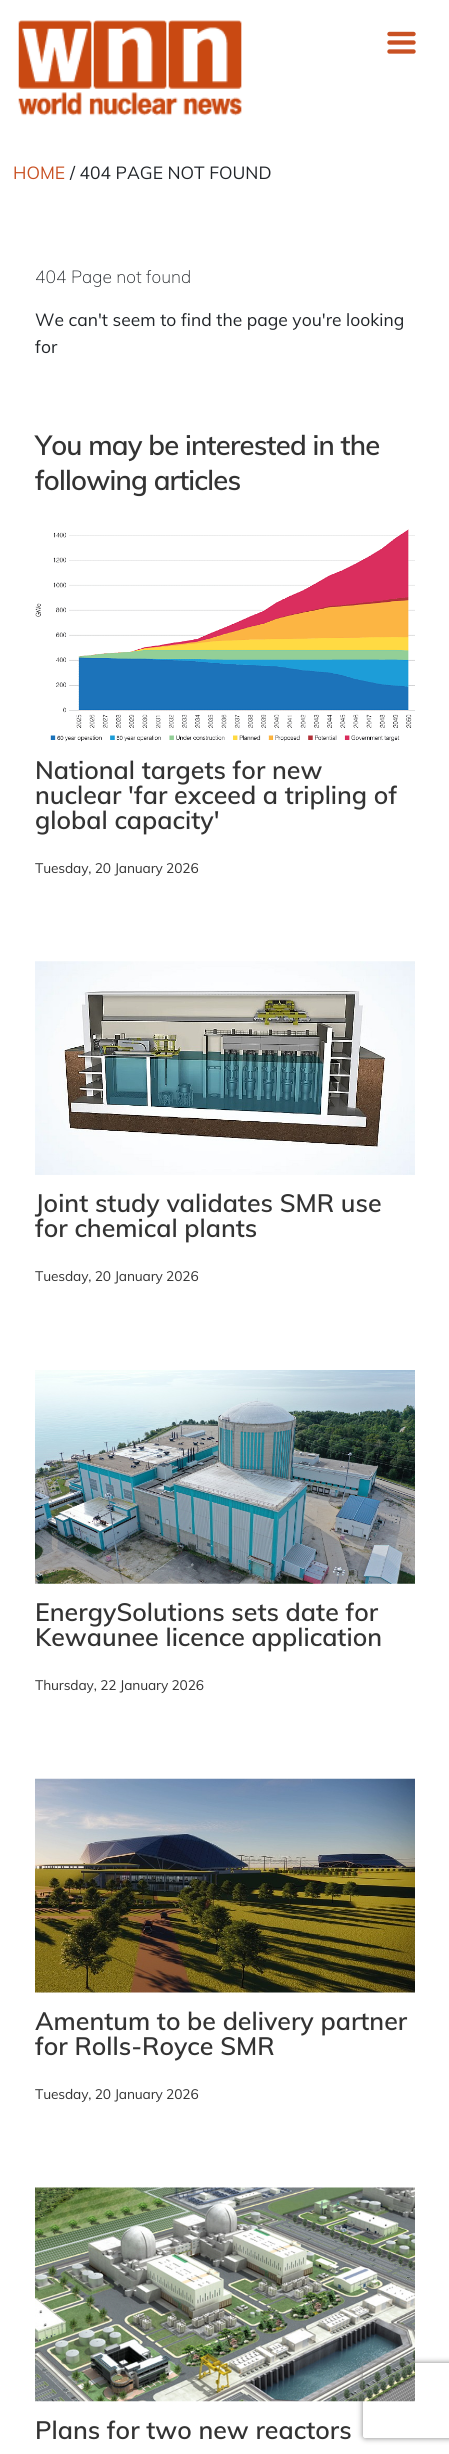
#include <cairo/cairo.h>
#include <math.h>
#include <stddef.h>

typedef struct { double x, y; const char *s; } line_t;
static cairo_t *cr;

static void rgb(unsigned color)
{
	cairo_set_source_rgb(cr, (color >> 16) / 255.0, (color >> 8 & 255) / 255.0, (color & 255) / 255.0);
}

static void tracked(double x, double y, const char *s, double letter, double word)
{
	cairo_move_to(cr, x, y);
	while (*s) {
		char ch[5] = {0};
		int n = 0;
		do ch[n++] = *s++; while ((*s & 0xC0) == 0x80);
		cairo_show_text(cr, ch);
		cairo_rel_move_to(cr, letter + word * (*ch == ' '), 0);
	}
}

static void rrect(double x, double y, double w, double h, double r)
{
	cairo_new_sub_path(cr);
	cairo_arc(cr, x + w - r, y + h - r, r, 0, M_PI / 2);
	cairo_arc(cr, x + r, y + h - r, r, M_PI / 2, M_PI);
	cairo_arc(cr, x + r, y + r, r, M_PI, 1.5 * M_PI);
	cairo_arc(cr, x + w - r, y + r, r, 1.5 * M_PI, 2 * M_PI);
	cairo_close_path(cr);
}

static void soft_shadow(double x, double y, double w, double h, double r, double blur, double alpha)
{
	cairo_push_group_with_content(cr, CAIRO_CONTENT_ALPHA);
	cairo_set_operator(cr, CAIRO_OPERATOR_SOURCE);
	for (int i = 15; i >= -15 && fmin(w, h) + blur * i / 3 > 0; i -= 2) {
		double e = blur * i / 6;
		cairo_set_source_rgba(cr, 0, 0, 0, alpha * erfc((i - 1) / 8.5) / 2);
		rrect(x - e, y - e, w + 2 * e, h + 2 * e, fmax(0, fmin(r + e + blur * .6, fmin(w, h) / 2 + e)));
		cairo_fill(cr);
	}
	cairo_pattern_t *soft = cairo_pop_group(cr);
	cairo_mask(cr, soft);
	cairo_pattern_destroy(soft);
}

static void image(const char *path, double x, double y, double w, double h)
{
	cairo_surface_t *image = cairo_image_surface_create_from_png(path);
	cairo_save(cr);
	cairo_set_source_surface(cr, image, x, y);
	cairo_rectangle(cr, x, y, w, h);
	cairo_fill(cr);
	cairo_restore(cr);
	cairo_surface_destroy(image);
}

int main(void) {
	cairo_surface_t *surface = cairo_image_surface_create(CAIRO_FORMAT_RGB24, 449, 2454);
	cr = cairo_create(surface);
	cairo_font_options_t *options = cairo_font_options_create();
	cairo_font_options_set_hint_metrics(options, CAIRO_HINT_METRICS_OFF);
	cairo_font_options_set_hint_style(options, CAIRO_HINT_STYLE_NONE);
	cairo_set_font_options(cr, options);
	cairo_set_miter_limit(cr, 4);
	rgb(0xffffff);
	cairo_paint(cr);
	image("img/1.png", 18, 20, 224, 96);
	cairo_new_path(cr);
	cairo_move_to(cr, 389.5, 34);
	cairo_line_to(cr, 413.5, 34);
	cairo_move_to(cr, 389.5, 42.5);
	cairo_line_to(cr, 413.5, 42.5);
	cairo_move_to(cr, 389.5, 51.5);
	cairo_line_to(cr, 413.5, 51.5);
	rgb(0xc95123);
	cairo_set_line_width(cr, 4.4);
	cairo_set_line_cap(cr, CAIRO_LINE_CAP_ROUND);
	cairo_stroke(cr);
	image("img/2.png", 35, 529, 380, 213);
	image("img/3.png", 35, 961, 380, 214);
	image("img/4.png", 35, 1370, 380, 214);
	image("img/5.png", 35, 1778, 380, 215);
	image("img/6.png", 35, 2187, 380, 215);
	cairo_save(cr);
	cairo_set_fill_rule(cr, CAIRO_FILL_RULE_EVEN_ODD);
	cairo_new_path(cr);
	cairo_move_to(cr, 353, 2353);
	cairo_line_to(cr, 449, 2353);
	cairo_line_to(cr, 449, 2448);
	cairo_line_to(cr, 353, 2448);
	cairo_close_path(cr);
	cairo_move_to(cr, 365.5, 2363);
	cairo_line_to(cr, 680.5, 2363);
	cairo_curve_to(cr, 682, 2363, 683, 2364, 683, 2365.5);
	cairo_line_to(cr, 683, 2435.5);
	cairo_curve_to(cr, 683, 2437, 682, 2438, 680.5, 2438);
	cairo_line_to(cr, 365.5, 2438);
	cairo_curve_to(cr, 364, 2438, 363, 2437, 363, 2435.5);
	cairo_line_to(cr, 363, 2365.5);
	cairo_curve_to(cr, 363, 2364, 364, 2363, 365.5, 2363);
	cairo_close_path(cr);
	cairo_clip(cr);
	rgb(0x808080);
	soft_shadow(363, 2363, 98, 75, 2.5, 3, 1);
	cairo_restore(cr);
	cairo_select_font_face(cr, "Muli", CAIRO_FONT_SLANT_NORMAL, CAIRO_FONT_WEIGHT_NORMAL);
	cairo_set_font_size(cr, 17.5);
	cairo_move_to(cr, 13, 179);
	cairo_show_text(cr, "HOME");
	rgb(0x212529);
	cairo_move_to(cr, 70, 179);
	cairo_show_text(cr, "/ 404 PAGE NOT FOUND");
	cairo_select_font_face(cr, "Muli ExtraLight", CAIRO_FONT_SLANT_NORMAL, CAIRO_FONT_WEIGHT_NORMAL);
	cairo_move_to(cr, 35, 283);
	cairo_show_text(cr, "404 Page not found");
	cairo_select_font_face(cr, "Muli", CAIRO_FONT_SLANT_NORMAL, CAIRO_FONT_WEIGHT_NORMAL);
	cairo_move_to(cr, 35, 326);
	cairo_show_text(cr, "We can't seem to find the page you're looking");
	cairo_move_to(cr, 35, 353);
	cairo_show_text(cr, "for");
	cairo_select_font_face(cr, "Muli SemiBold", CAIRO_FONT_SLANT_NORMAL, CAIRO_FONT_WEIGHT_NORMAL);
	cairo_set_font_size(cr, 27.5);
	rgb(0x333333);
	tracked(35, 455, "You may be interested in the", -0.8, 0);
	tracked(35, 490, "following articles", -0.8, 0);
	cairo_set_font_size(cr, 25);
	{
		static const line_t items[] = {
			{35, 779, "National targets for new"},
			{35, 804, "nuclear 'far exceed a tripling of"},
			{35, 829, "global capacity'"},
		};
		for (size_t i = 0; i < sizeof items / sizeof *items; i++) {
			cairo_move_to(cr, items[i].x, items[i].y);
			cairo_show_text(cr, items[i].s);
		}
	}
	cairo_select_font_face(cr, "Muli", CAIRO_FONT_SLANT_NORMAL, CAIRO_FONT_WEIGHT_NORMAL);
	cairo_set_font_size(cr, 13.75);
	tracked(35, 873, "Tuesday, 20 January 2026", -0.15, 0);
	cairo_select_font_face(cr, "Muli SemiBold", CAIRO_FONT_SLANT_NORMAL, CAIRO_FONT_WEIGHT_NORMAL);
	cairo_set_font_size(cr, 25);
	cairo_move_to(cr, 35, 1212);
	cairo_show_text(cr, "Joint study validates SMR use");
	cairo_move_to(cr, 35, 1237);
	cairo_show_text(cr, "for chemical plants");
	cairo_select_font_face(cr, "Muli", CAIRO_FONT_SLANT_NORMAL, CAIRO_FONT_WEIGHT_NORMAL);
	cairo_set_font_size(cr, 13.75);
	tracked(35, 1281, "Tuesday, 20 January 2026", -0.15, 0);
	cairo_select_font_face(cr, "Muli SemiBold", CAIRO_FONT_SLANT_NORMAL, CAIRO_FONT_WEIGHT_NORMAL);
	cairo_set_font_size(cr, 25);
	cairo_move_to(cr, 35, 1621);
	cairo_show_text(cr, "EnergySolutions sets date for");
	cairo_move_to(cr, 35, 1646);
	cairo_show_text(cr, "Kewaunee licence application");
	cairo_select_font_face(cr, "Muli", CAIRO_FONT_SLANT_NORMAL, CAIRO_FONT_WEIGHT_NORMAL);
	cairo_set_font_size(cr, 13.75);
	tracked(35, 1690, "Thursday, 22 January 2026", -0.15, 0);
	cairo_select_font_face(cr, "Muli SemiBold", CAIRO_FONT_SLANT_NORMAL, CAIRO_FONT_WEIGHT_NORMAL);
	cairo_set_font_size(cr, 25);
	cairo_move_to(cr, 35, 2030);
	cairo_show_text(cr, "Amentum to be delivery partner");
	cairo_move_to(cr, 35, 2055);
	cairo_show_text(cr, "for Rolls-Royce SMR");
	cairo_select_font_face(cr, "Muli", CAIRO_FONT_SLANT_NORMAL, CAIRO_FONT_WEIGHT_NORMAL);
	cairo_set_font_size(cr, 13.75);
	tracked(35, 2099, "Tuesday, 20 January 2026", -0.15, 0);
	cairo_select_font_face(cr, "Muli SemiBold", CAIRO_FONT_SLANT_NORMAL, CAIRO_FONT_WEIGHT_NORMAL);
	cairo_set_font_size(cr, 25);
	cairo_move_to(cr, 35, 2439);
	cairo_show_text(cr, "Plans for two new reactors");
	cairo_surface_write_to_png(surface, "page.png");
	cairo_font_options_destroy(options);
	cairo_destroy(cr);
	cairo_surface_destroy(surface);
	return 0;
}
